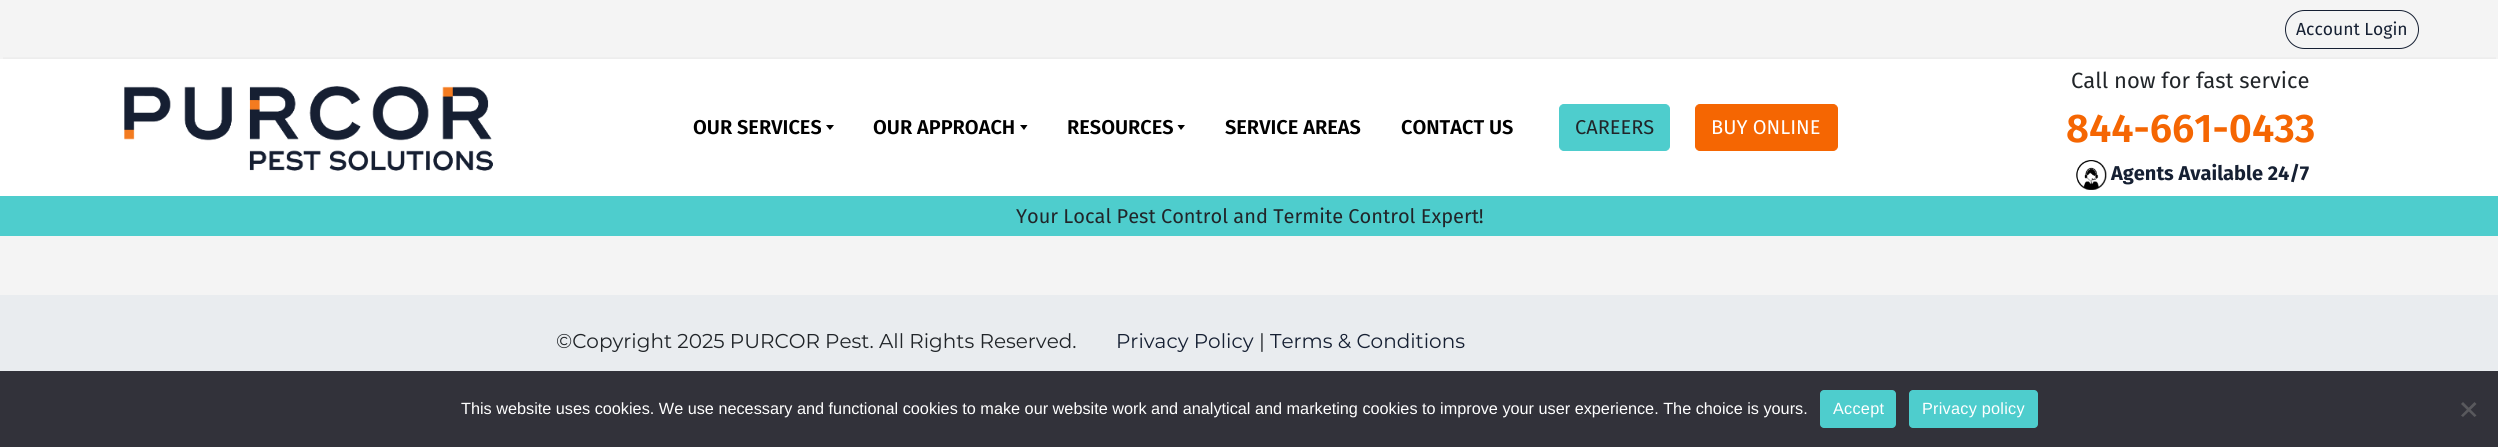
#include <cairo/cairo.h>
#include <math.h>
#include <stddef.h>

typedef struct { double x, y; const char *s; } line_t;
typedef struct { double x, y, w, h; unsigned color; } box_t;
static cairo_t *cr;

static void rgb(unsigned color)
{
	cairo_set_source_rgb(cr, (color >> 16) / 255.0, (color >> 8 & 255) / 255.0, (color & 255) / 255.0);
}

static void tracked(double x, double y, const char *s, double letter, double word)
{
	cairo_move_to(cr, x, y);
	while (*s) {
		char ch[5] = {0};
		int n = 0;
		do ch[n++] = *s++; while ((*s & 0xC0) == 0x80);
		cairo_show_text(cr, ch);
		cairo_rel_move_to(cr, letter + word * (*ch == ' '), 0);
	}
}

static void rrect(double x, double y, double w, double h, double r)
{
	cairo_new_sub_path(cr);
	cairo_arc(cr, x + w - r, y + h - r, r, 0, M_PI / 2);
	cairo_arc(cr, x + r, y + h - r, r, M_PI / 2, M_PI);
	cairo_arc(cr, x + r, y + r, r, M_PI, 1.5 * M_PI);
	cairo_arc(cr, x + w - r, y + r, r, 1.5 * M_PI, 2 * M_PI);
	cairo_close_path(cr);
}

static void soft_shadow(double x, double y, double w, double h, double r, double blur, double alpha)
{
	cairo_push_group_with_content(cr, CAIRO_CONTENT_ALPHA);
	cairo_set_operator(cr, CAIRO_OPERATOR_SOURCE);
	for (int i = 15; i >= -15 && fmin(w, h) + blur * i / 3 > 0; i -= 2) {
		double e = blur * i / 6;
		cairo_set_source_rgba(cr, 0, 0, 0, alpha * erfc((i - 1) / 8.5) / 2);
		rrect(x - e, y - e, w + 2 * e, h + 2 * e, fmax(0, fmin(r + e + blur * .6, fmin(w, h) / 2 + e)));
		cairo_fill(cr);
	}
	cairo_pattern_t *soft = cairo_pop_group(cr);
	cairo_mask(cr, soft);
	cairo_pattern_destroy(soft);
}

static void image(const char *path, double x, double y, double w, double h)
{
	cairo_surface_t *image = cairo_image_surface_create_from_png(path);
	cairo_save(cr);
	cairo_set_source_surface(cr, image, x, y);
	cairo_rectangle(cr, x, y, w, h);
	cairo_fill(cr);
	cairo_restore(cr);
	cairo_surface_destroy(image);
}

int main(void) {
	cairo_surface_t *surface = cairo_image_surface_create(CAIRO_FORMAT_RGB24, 2498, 447);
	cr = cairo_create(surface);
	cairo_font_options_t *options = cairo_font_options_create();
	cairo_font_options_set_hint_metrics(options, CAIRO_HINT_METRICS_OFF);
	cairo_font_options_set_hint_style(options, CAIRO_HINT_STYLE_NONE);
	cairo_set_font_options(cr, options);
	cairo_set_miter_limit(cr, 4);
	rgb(0xf4f4f4);
	cairo_paint(cr);
	rgb(0xffffff);
	cairo_rectangle(cr, 0, 59, 2498, 137);
	cairo_fill(cr);
	rrect(2285.5, 10.5, 133, 38, 19);
	rgb(0x162033);
	cairo_set_line_width(cr, 1);
	cairo_stroke(cr);
	cairo_save(cr);
	cairo_rectangle(cr, 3, 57, 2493, 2);
	cairo_clip(cr);
	rgb(0x000000);
	soft_shadow(0, 60, 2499, 138, 0, 3, 0.1);
	cairo_restore(cr);
	image("img/1.png", 124, 86, 369, 85);
	rgb(0x000000);
	cairo_new_path(cr);
	cairo_move_to(cr, 826, 125);
	cairo_line_to(cr, 834, 125);
	cairo_line_to(cr, 830, 130);
	cairo_close_path(cr);
	cairo_fill(cr);
	cairo_new_path(cr);
	cairo_move_to(cr, 1020, 125);
	cairo_line_to(cr, 1027.5, 125);
	cairo_line_to(cr, 1024, 130);
	cairo_close_path(cr);
	cairo_fill(cr);
	cairo_new_path(cr);
	cairo_move_to(cr, 1177.5, 125);
	cairo_line_to(cr, 1185, 125);
	cairo_line_to(cr, 1181, 130);
	cairo_close_path(cr);
	cairo_fill(cr);
	rgb(0x4ecdcd);
	rrect(1559.5, 104.5, 110, 46, 4.5);
	cairo_fill_preserve(cr);
	cairo_stroke(cr);
	rgb(0xf56602);
	rrect(1695.5, 104.5, 142, 46, 4.5);
	cairo_fill_preserve(cr);
	cairo_stroke(cr);
	image("img/2.png", 2076, 160, 31, 30);
	{
		static const box_t items[] = {
			{0, 196, 2498, 40, 0x4ecdcd},
			{0, 295, 2498, 76, 0xe9ecef},
			{0, 371, 2498, 76, 0x32323a},
		};
		for (size_t i = 0; i < sizeof items / sizeof *items; i++) {
			rgb(items[i].color);
			cairo_rectangle(cr, items[i].x, items[i].y, items[i].w, items[i].h);
			cairo_fill(cr);
		}
	}
	rgb(0x4ecdcd);
	rrect(1820, 390, 76, 38, 4);
	cairo_fill(cr);
	rrect(1909, 390, 129, 38, 4);
	cairo_fill(cr);
	rgb(0x59595d);
	cairo_new_path(cr);
	cairo_move_to(cr, 2474.5, 402);
	cairo_line_to(cr, 2476.5, 404);
	cairo_line_to(cr, 2463, 417);
	cairo_line_to(cr, 2461, 415.5);
	cairo_close_path(cr);
	cairo_fill(cr);
	cairo_new_path(cr);
	cairo_move_to(cr, 2461, 404);
	cairo_line_to(cr, 2463, 402);
	cairo_line_to(cr, 2476.5, 415.5);
	cairo_line_to(cr, 2474.5, 417);
	cairo_close_path(cr);
	cairo_fill(cr);
	cairo_select_font_face(cr, "Fira Sans", CAIRO_FONT_SLANT_NORMAL, CAIRO_FONT_WEIGHT_NORMAL);
	cairo_set_font_size(cr, 17.5);
	rgb(0x162033);
	cairo_move_to(cr, 2296, 35);
	cairo_show_text(cr, "Account Login");
	cairo_select_font_face(cr, "Fira Sans SemiBold", CAIRO_FONT_SLANT_NORMAL, CAIRO_FONT_WEIGHT_NORMAL);
	cairo_set_font_size(cr, 20);
	rgb(0x000000);
	{
		static const line_t items[] = {
			{693, 134, "OUR SERVICES"},
			{873, 134, "OUR APPROACH"},
			{1067, 134, "RESOURCES"},
			{1225, 134, "SERVICE AREAS"},
			{1401, 134, "CONTACT US"},
		};
		for (size_t i = 0; i < sizeof items / sizeof *items; i++) {
			cairo_move_to(cr, items[i].x, items[i].y);
			cairo_show_text(cr, items[i].s);
		}
	}
	cairo_select_font_face(cr, "Fira Sans", CAIRO_FONT_SLANT_NORMAL, CAIRO_FONT_WEIGHT_NORMAL);
	rgb(0x212529);
	cairo_move_to(cr, 1575, 134);
	cairo_show_text(cr, "CAREERS");
	rgb(0xffffff);
	cairo_move_to(cr, 1711, 134);
	cairo_show_text(cr, "BUY ONLINE");
	cairo_set_font_size(cr, 22);
	rgb(0x212529);
	cairo_move_to(cr, 2071, 88);
	cairo_show_text(cr, "Call now for fast service");
	cairo_select_font_face(cr, "Fira Sans SemiBold", CAIRO_FONT_SLANT_NORMAL, CAIRO_FONT_WEIGHT_NORMAL);
	cairo_set_font_size(cr, 40);
	rgb(0xf56602);
	cairo_move_to(cr, 2066, 142);
	cairo_show_text(cr, "844-661-0433");
	cairo_select_font_face(cr, "Fira Sans", CAIRO_FONT_SLANT_NORMAL, CAIRO_FONT_WEIGHT_BOLD);
	cairo_set_font_size(cr, 20);
	rgb(0x162033);
	cairo_move_to(cr, 2111, 180);
	cairo_show_text(cr, "Agents Available 24/7");
	cairo_select_font_face(cr, "Fira Sans", CAIRO_FONT_SLANT_NORMAL, CAIRO_FONT_WEIGHT_NORMAL);
	rgb(0x212529);
	cairo_move_to(cr, 1016, 223);
	cairo_show_text(cr, "Your Local Pest Control and Termite Control Expert!");
	cairo_select_font_face(cr, "Montserrat", CAIRO_FONT_SLANT_NORMAL, CAIRO_FONT_WEIGHT_NORMAL);
	cairo_move_to(cr, 556, 348);
	cairo_show_text(cr, "©Copyright 2025 PURCOR Pest. All Rights Reserved.");
	rgb(0x162033);
	cairo_move_to(cr, 1116, 348);
	cairo_show_text(cr, "Privacy Policy");
	rgb(0x212529);
	cairo_move_to(cr, 1259, 348);
	cairo_show_text(cr, "|");
	rgb(0x162033);
	cairo_move_to(cr, 1270, 348);
	cairo_show_text(cr, "Terms & Conditions");
	cairo_select_font_face(cr, "Liberation Sans", CAIRO_FONT_SLANT_NORMAL, CAIRO_FONT_WEIGHT_NORMAL);
	cairo_set_font_size(cr, 16.25);
	rgb(0xffffff);
	cairo_move_to(cr, 461, 414);
	cairo_show_text(cr, "This website uses cookies. We use necessary and functional cookies to make our website work and analytical and marketing cookies to improve your user experience. The choice is yours.");
	tracked(1833, 414, "Accept", 0.25, 0);
	tracked(1922, 414, "Privacy policy", 0.25, 0);
	cairo_surface_write_to_png(surface, "page.png");
	cairo_font_options_destroy(options);
	cairo_destroy(cr);
	cairo_surface_destroy(surface);
	return 0;
}
